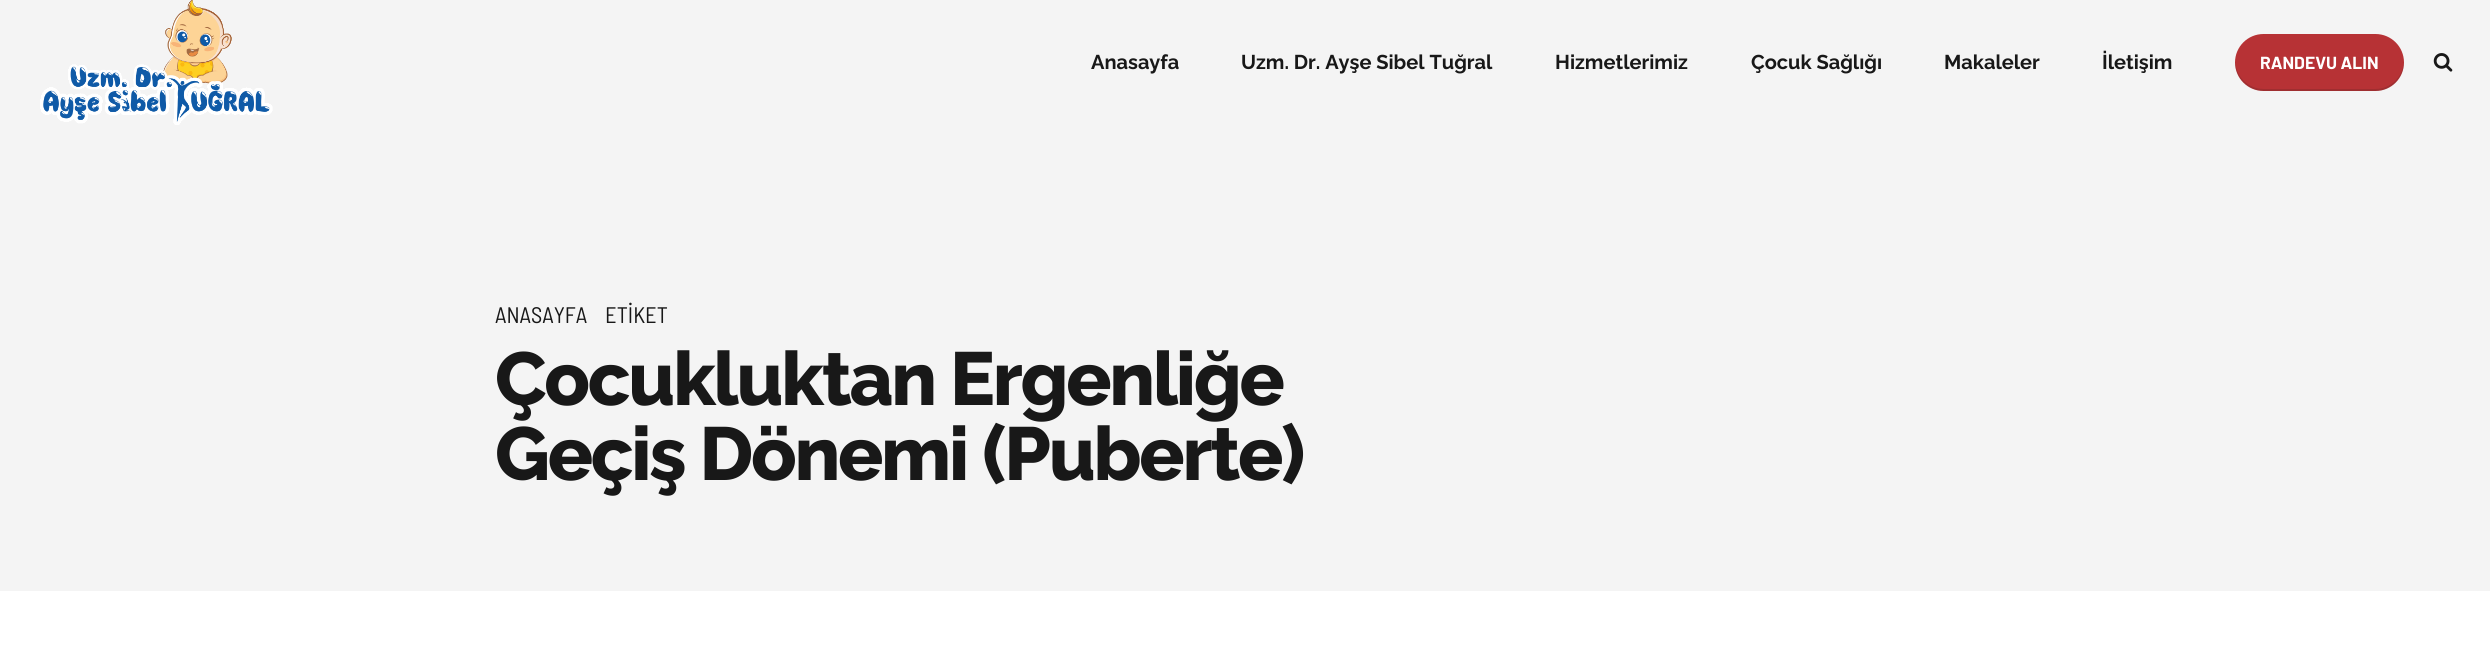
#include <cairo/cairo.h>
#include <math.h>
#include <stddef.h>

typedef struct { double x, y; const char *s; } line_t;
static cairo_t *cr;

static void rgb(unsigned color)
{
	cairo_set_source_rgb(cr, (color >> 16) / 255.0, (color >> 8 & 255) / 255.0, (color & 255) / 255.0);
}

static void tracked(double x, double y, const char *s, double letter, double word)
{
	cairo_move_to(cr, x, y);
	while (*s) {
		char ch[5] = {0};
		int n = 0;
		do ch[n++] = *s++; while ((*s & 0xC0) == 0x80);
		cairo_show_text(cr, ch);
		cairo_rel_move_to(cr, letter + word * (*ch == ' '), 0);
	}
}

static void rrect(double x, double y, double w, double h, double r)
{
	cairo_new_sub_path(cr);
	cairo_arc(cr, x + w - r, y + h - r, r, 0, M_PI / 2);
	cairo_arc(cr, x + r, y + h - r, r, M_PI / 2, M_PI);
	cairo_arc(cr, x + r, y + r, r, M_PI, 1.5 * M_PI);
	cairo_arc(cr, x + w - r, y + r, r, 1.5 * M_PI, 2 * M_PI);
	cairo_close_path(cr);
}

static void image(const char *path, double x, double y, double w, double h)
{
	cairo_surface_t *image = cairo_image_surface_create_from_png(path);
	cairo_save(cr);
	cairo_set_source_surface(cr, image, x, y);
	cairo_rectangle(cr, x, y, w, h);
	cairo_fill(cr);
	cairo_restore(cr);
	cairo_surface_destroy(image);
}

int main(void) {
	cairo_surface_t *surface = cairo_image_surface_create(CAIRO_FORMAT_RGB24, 2490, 652);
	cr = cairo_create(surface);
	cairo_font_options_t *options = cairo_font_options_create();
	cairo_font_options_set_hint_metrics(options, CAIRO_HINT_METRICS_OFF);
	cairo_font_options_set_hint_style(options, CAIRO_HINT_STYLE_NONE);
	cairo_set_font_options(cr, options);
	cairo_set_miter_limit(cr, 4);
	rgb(0xffffff);
	cairo_paint(cr);
	rgb(0xf4f4f4);
	cairo_rectangle(cr, 0, 0, 2490, 591);
	cairo_fill(cr);
	image("img/1.png", 40, 0, 233, 125);
	rgb(0xb73235);
	rrect(2235, 34, 169, 57, 28.5);
	cairo_fill(cr);
	cairo_set_source_rgba(cr, 0.094, 0.094, 0.094, 0.15);
	cairo_new_path(cr);
	cairo_move_to(cr, 2235, 61);
	cairo_line_to(cr, 2235, 62);
	cairo_curve_to(cr, 2235, 78, 2248, 91, 2264, 91);
	cairo_line_to(cr, 2376, 91);
	cairo_curve_to(cr, 2391, 91, 2404, 78, 2404, 62);
	cairo_line_to(cr, 2404, 61);
	cairo_curve_to(cr, 2403, 77, 2391, 89, 2375, 89);
	cairo_line_to(cr, 2264, 89);
	cairo_curve_to(cr, 2248, 89, 2236, 77, 2235, 61);
	cairo_close_path(cr);
	cairo_fill(cr);
	image("img/2.png", 2433, 53, 20, 19);
	cairo_select_font_face(cr, "Raleway", CAIRO_FONT_SLANT_NORMAL, CAIRO_FONT_WEIGHT_BOLD);
	cairo_set_font_size(cr, 20);
	rgb(0x181818);
	{
		static const line_t items[] = {
			{1091, 69, "Anasayfa"},
			{1241, 69, "Uzm. Dr. Ayşe Sibel Tuğral"},
			{1555, 69, "Hizmetlerimiz"},
			{1751, 69, "Çocuk Sağlığı"},
			{1944, 69, "Makaleler"},
			{2102, 69, "İletişim"},
		};
		for (size_t i = 0; i < sizeof items / sizeof *items; i++) {
			cairo_move_to(cr, items[i].x, items[i].y);
			cairo_show_text(cr, items[i].s);
		}
	}
	cairo_select_font_face(cr, "Barlow", CAIRO_FONT_SLANT_NORMAL, CAIRO_FONT_WEIGHT_BOLD);
	cairo_set_font_size(cr, 17.5);
	rgb(0xffffff);
	cairo_move_to(cr, 2260, 69);
	cairo_show_text(cr, "RANDEVU ALIN");
	cairo_select_font_face(cr, "Barlow Semi Condensed", CAIRO_FONT_SLANT_NORMAL, CAIRO_FONT_WEIGHT_NORMAL);
	cairo_set_font_size(cr, 22.5);
	rgb(0x181818);
	cairo_move_to(cr, 495, 323);
	cairo_show_text(cr, "ANASAYFA");
	cairo_move_to(cr, 605, 323);
	cairo_show_text(cr, "ETİKET");
	cairo_select_font_face(cr, "Raleway ExtraBold", CAIRO_FONT_SLANT_NORMAL, CAIRO_FONT_WEIGHT_NORMAL);
	cairo_set_font_size(cr, 75);
	tracked(495, 405, "Çocukluktan Ergenliğe", -2.25, 0);
	tracked(495, 480, "Geçiş Dönemi (Puberte)", -2.25, 0);
	cairo_surface_write_to_png(surface, "page.png");
	cairo_font_options_destroy(options);
	cairo_destroy(cr);
	cairo_surface_destroy(surface);
	return 0;
}
